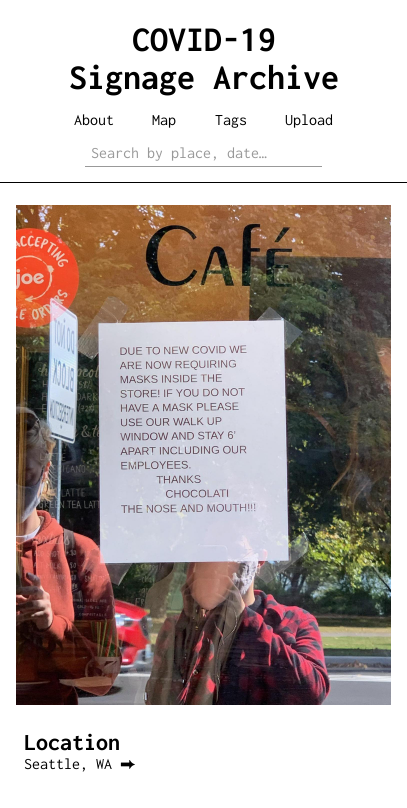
#include <cairo/cairo.h>
#include <math.h>
#include <stddef.h>

typedef struct { double x, y; const char *s; } line_t;
static cairo_t *cr;

static void rgb(unsigned color)
{
	cairo_set_source_rgb(cr, (color >> 16) / 255.0, (color >> 8 & 255) / 255.0, (color & 255) / 255.0);
}

static void image(const char *path, double x, double y, double w, double h)
{
	cairo_surface_t *image = cairo_image_surface_create_from_png(path);
	cairo_save(cr);
	cairo_set_source_surface(cr, image, x, y);
	cairo_rectangle(cr, x, y, w, h);
	cairo_fill(cr);
	cairo_restore(cr);
	cairo_surface_destroy(image);
}

int main(void) {
	cairo_surface_t *surface = cairo_image_surface_create(CAIRO_FORMAT_RGB24, 407, 808);
	cr = cairo_create(surface);
	cairo_font_options_t *options = cairo_font_options_create();
	cairo_font_options_set_hint_metrics(options, CAIRO_HINT_METRICS_OFF);
	cairo_font_options_set_hint_style(options, CAIRO_HINT_STYLE_NONE);
	cairo_set_font_options(cr, options);
	cairo_set_miter_limit(cr, 4);
	rgb(0xffffff);
	cairo_paint(cr);
	rgb(0x000000);
	cairo_rectangle(cr, 0, 182, 407, 1);
	cairo_fill(cr);
	rgb(0x999999);
	cairo_rectangle(cr, 85, 166, 237, 1);
	cairo_fill(cr);
	image("img/1.png", 16, 205, 375, 500);
	cairo_select_font_face(cr, "Inconsolata", CAIRO_FONT_SLANT_NORMAL, CAIRO_FONT_WEIGHT_BOLD);
	cairo_set_font_size(cr, 36);
	rgb(0x000000);
	cairo_move_to(cr, 132, 51);
	cairo_show_text(cr, "COVID-19");
	cairo_move_to(cr, 69, 89);
	cairo_show_text(cr, "Signage Archive");
	cairo_select_font_face(cr, "Inconsolata", CAIRO_FONT_SLANT_NORMAL, CAIRO_FONT_WEIGHT_NORMAL);
	cairo_set_font_size(cr, 16);
	{
		static const line_t items[] = {
			{74, 125, "About"},
			{152, 125, "Map"},
			{215, 125, "Tags"},
			{285, 125, "Upload"},
		};
		for (size_t i = 0; i < sizeof items / sizeof *items; i++) {
			cairo_move_to(cr, items[i].x, items[i].y);
			cairo_show_text(cr, items[i].s);
		}
	}
	rgb(0x999999);
	cairo_move_to(cr, 91, 158);
	cairo_show_text(cr, "Search by place, date…");
	cairo_select_font_face(cr, "Inconsolata", CAIRO_FONT_SLANT_NORMAL, CAIRO_FONT_WEIGHT_BOLD);
	cairo_set_font_size(cr, 24);
	rgb(0x000000);
	cairo_move_to(cr, 24, 750);
	cairo_show_text(cr, "Location");
	cairo_select_font_face(cr, "Inconsolata", CAIRO_FONT_SLANT_NORMAL, CAIRO_FONT_WEIGHT_NORMAL);
	cairo_set_font_size(cr, 16);
	cairo_move_to(cr, 24, 769);
	cairo_show_text(cr, "Seattle, WA");
	cairo_select_font_face(cr, "FreeSans", CAIRO_FONT_SLANT_NORMAL, CAIRO_FONT_WEIGHT_NORMAL);
	cairo_move_to(cr, 120, 769);
	cairo_show_text(cr, "⮕");
	cairo_surface_write_to_png(surface, "page.png");
	cairo_font_options_destroy(options);
	cairo_destroy(cr);
	cairo_surface_destroy(surface);
	return 0;
}
